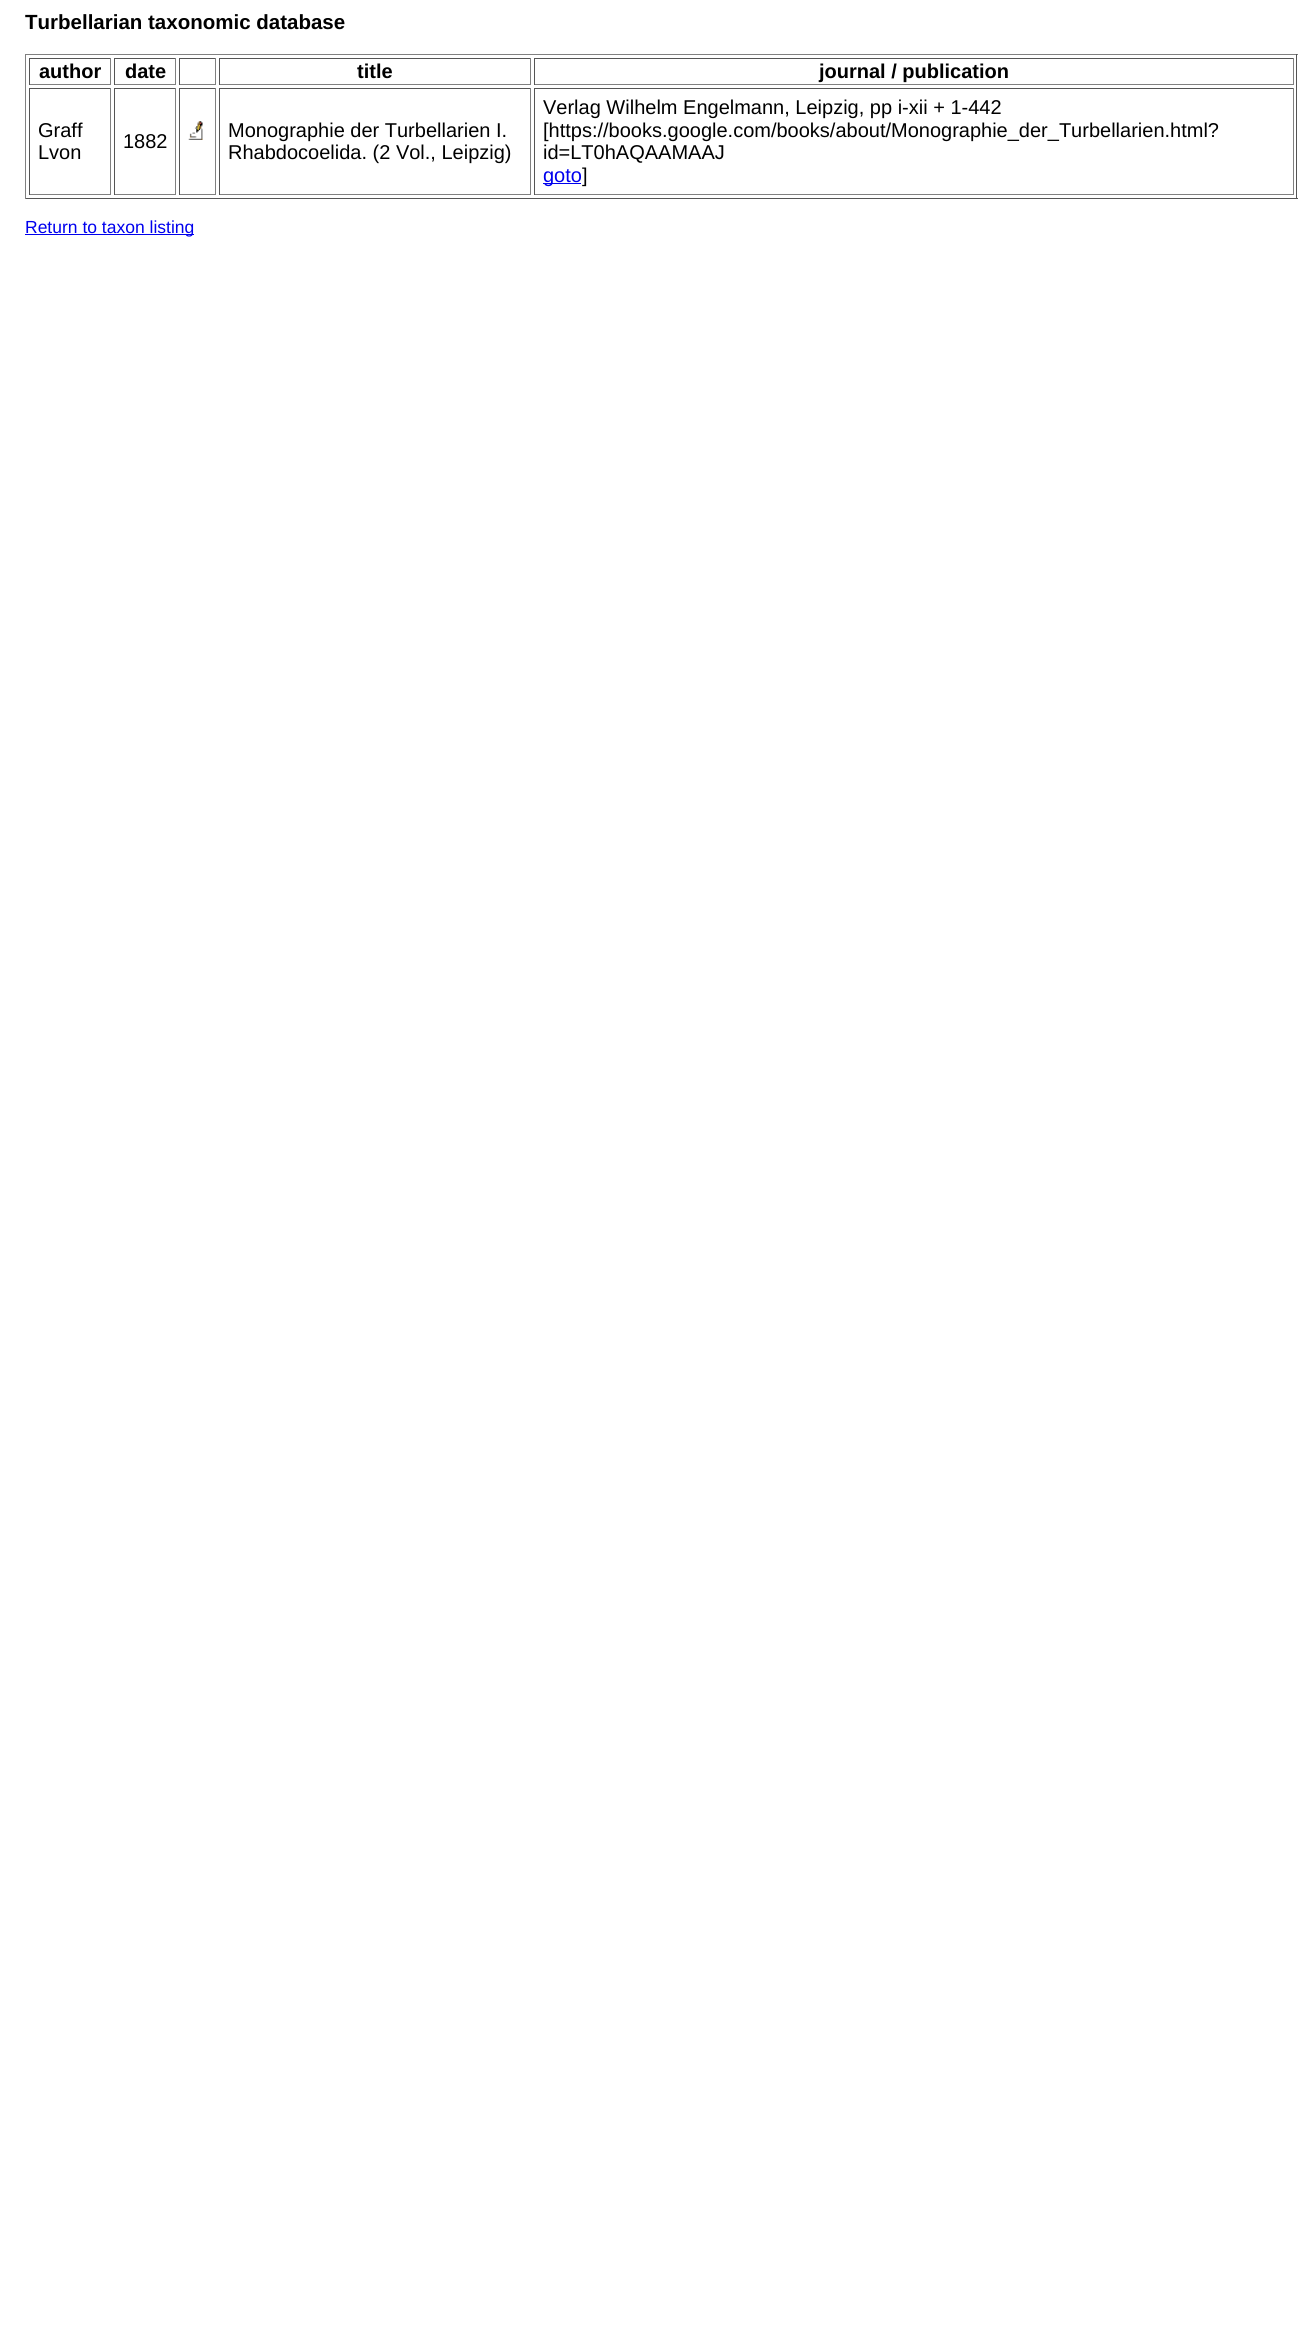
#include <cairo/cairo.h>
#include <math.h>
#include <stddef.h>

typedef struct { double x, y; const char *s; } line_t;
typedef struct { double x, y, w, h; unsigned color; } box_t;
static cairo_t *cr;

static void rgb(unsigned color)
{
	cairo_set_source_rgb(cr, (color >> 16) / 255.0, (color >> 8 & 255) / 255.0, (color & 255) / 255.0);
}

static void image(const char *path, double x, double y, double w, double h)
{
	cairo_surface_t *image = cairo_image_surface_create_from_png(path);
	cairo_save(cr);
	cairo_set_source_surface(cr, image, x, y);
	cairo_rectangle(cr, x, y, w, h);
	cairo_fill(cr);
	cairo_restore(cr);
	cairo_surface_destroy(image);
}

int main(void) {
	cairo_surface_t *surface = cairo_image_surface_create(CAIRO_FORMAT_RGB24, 1307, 2326);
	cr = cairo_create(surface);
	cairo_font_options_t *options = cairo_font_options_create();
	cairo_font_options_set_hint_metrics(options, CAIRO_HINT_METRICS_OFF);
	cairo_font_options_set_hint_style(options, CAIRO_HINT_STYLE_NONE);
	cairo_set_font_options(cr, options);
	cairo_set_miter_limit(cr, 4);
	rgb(0xffffff);
	cairo_paint(cr);
	{
		static const box_t items[] = {
			{25, 54, 1273, 1, 0x808080},
			{1296, 54, 1, 145, 0x555555},
			{25, 198, 1273, 1, 0x555555},
			{25, 54, 1, 145, 0x808080},
			{29, 58, 82, 1, 0x555555},
			{110, 58, 1, 27, 0x808080},
			{29, 84, 82, 1, 0x808080},
			{29, 58, 1, 27, 0x555555},
			{114, 58, 62, 1, 0x555555},
			{175, 58, 1, 27, 0x808080},
			{114, 84, 62, 1, 0x808080},
			{114, 58, 1, 27, 0x555555},
			{179, 58, 37, 1, 0x555555},
			{215, 58, 1, 27, 0x808080},
			{179, 84, 37, 1, 0x808080},
			{179, 58, 1, 27, 0x555555},
			{219, 58, 312, 1, 0x555555},
			{530, 58, 1, 27, 0x808080},
			{219, 84, 312, 1, 0x808080},
			{219, 58, 1, 27, 0x555555},
			{534, 58, 760, 1, 0x555555},
			{1293, 58, 1, 27, 0x808080},
			{534, 84, 760, 1, 0x808080},
			{534, 58, 1, 27, 0x555555},
			{29, 88, 82, 1, 0x555555},
			{110, 88, 1, 107, 0x808080},
			{29, 194, 82, 1, 0x808080},
			{29, 88, 1, 107, 0x555555},
			{114, 88, 62, 1, 0x555555},
			{175, 88, 1, 107, 0x808080},
			{114, 194, 62, 1, 0x808080},
			{114, 88, 1, 107, 0x555555},
			{179, 88, 37, 1, 0x555555},
			{215, 88, 1, 107, 0x808080},
			{179, 194, 37, 1, 0x808080},
			{179, 88, 1, 107, 0x555555},
		};
		for (size_t i = 0; i < sizeof items / sizeof *items; i++) {
			rgb(items[i].color);
			cairo_rectangle(cr, items[i].x, items[i].y, items[i].w, items[i].h);
			cairo_fill(cr);
		}
	}
	image("img/1.png", 188, 121, 15, 19);
	{
		static const box_t items[] = {
			{219, 88, 312, 1, 0x555555},
			{530, 88, 1, 107, 0x808080},
			{219, 194, 312, 1, 0x808080},
			{219, 88, 1, 107, 0x555555},
			{534, 88, 760, 1, 0x555555},
			{1293, 88, 1, 107, 0x808080},
			{534, 194, 760, 1, 0x808080},
			{534, 88, 1, 107, 0x555555},
			{543, 183, 38, 1, 0x0000ee},
			{25, 234, 169, 1, 0x0000ee},
		};
		for (size_t i = 0; i < sizeof items / sizeof *items; i++) {
			rgb(items[i].color);
			cairo_rectangle(cr, items[i].x, items[i].y, items[i].w, items[i].h);
			cairo_fill(cr);
		}
	}
	cairo_select_font_face(cr, "Liberation Sans", CAIRO_FONT_SLANT_NORMAL, CAIRO_FONT_WEIGHT_BOLD);
	cairo_set_font_size(cr, 20.5);
	rgb(0x000000);
	cairo_move_to(cr, 25, 29);
	cairo_show_text(cr, "Turbellarian taxonomic database");
	cairo_set_font_size(cr, 20);
	{
		static const line_t items[] = {
			{39, 78, "author"},
			{125, 78, "date"},
			{357, 78, "title"},
			{819, 78, "journal / publication"},
		};
		for (size_t i = 0; i < sizeof items / sizeof *items; i++) {
			cairo_move_to(cr, items[i].x, items[i].y);
			cairo_show_text(cr, items[i].s);
		}
	}
	cairo_select_font_face(cr, "Liberation Sans", CAIRO_FONT_SLANT_NORMAL, CAIRO_FONT_WEIGHT_NORMAL);
	{
		static const line_t items[] = {
			{38, 137, "Graff"},
			{38, 159, "Lvon"},
			{123, 148, "1882"},
			{228, 137, "Monographie der Turbellarien I."},
			{228, 159, "Rhabdocoelida. (2 Vol., Leipzig)"},
			{543, 114, "Verlag Wilhelm Engelmann, Leipzig, pp i-xii + 1-442"},
			{543, 137, "[https://books.google.com/books/about/Monographie_der_Turbellarien.html?"},
			{543, 159, "id=LT0hAQAAMAAJ"},
		};
		for (size_t i = 0; i < sizeof items / sizeof *items; i++) {
			cairo_move_to(cr, items[i].x, items[i].y);
			cairo_show_text(cr, items[i].s);
		}
	}
	rgb(0x0000ee);
	cairo_move_to(cr, 543, 182);
	cairo_show_text(cr, "goto");
	rgb(0x000000);
	cairo_move_to(cr, 582, 182);
	cairo_show_text(cr, "]");
	cairo_set_font_size(cr, 17.5);
	rgb(0x0000ee);
	cairo_move_to(cr, 25, 233);
	cairo_show_text(cr, "Return to taxon listing");
	cairo_surface_write_to_png(surface, "page.png");
	cairo_font_options_destroy(options);
	cairo_destroy(cr);
	cairo_surface_destroy(surface);
	return 0;
}
